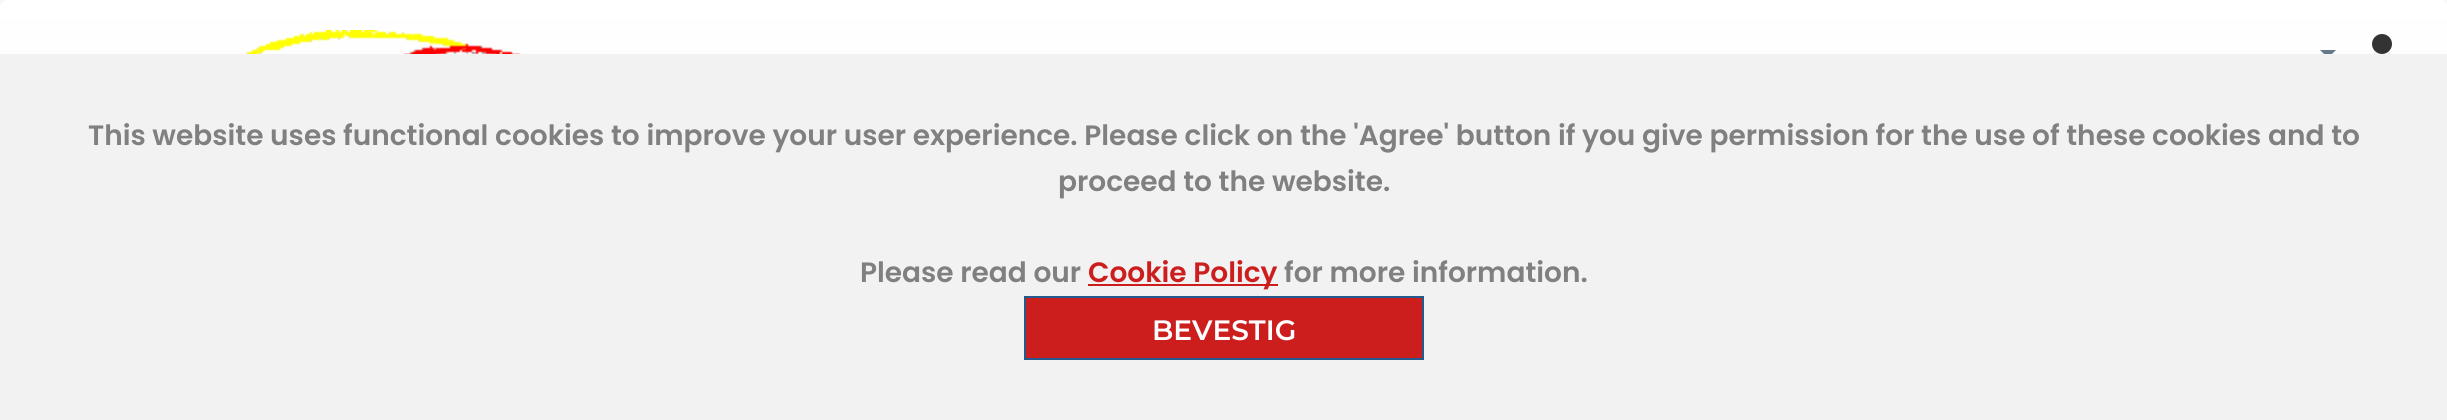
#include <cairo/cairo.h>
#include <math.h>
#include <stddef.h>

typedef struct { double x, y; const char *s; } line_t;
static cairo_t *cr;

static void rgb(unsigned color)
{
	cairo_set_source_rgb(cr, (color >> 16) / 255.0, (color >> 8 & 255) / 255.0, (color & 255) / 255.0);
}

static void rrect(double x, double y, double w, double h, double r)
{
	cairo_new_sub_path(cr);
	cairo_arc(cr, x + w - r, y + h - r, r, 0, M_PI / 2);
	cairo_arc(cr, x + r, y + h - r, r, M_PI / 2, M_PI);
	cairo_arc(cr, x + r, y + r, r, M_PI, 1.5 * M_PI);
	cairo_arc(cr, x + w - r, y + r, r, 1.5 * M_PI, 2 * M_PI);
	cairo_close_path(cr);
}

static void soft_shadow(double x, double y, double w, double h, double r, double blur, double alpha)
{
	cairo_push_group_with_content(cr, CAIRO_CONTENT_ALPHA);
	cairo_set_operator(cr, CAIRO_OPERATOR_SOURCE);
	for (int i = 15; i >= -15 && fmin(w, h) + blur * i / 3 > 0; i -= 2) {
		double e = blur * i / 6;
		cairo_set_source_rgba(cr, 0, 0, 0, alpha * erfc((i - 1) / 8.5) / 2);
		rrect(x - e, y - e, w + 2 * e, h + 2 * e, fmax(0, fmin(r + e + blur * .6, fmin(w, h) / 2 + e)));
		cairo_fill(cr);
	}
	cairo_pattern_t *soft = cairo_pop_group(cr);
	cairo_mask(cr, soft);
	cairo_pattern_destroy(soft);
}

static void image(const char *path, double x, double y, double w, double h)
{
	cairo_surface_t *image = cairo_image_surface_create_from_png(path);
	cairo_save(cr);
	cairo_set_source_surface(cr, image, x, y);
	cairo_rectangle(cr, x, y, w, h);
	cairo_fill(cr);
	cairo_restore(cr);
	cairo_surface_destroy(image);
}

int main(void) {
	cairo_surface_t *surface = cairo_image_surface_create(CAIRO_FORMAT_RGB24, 2447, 420);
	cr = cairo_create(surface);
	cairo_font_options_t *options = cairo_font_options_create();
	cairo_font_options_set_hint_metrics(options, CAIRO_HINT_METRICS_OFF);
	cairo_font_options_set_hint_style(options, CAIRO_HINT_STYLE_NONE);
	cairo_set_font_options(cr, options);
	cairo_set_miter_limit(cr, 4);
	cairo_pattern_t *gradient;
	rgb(0xffffff);
	cairo_paint(cr);
	rgb(0xe8e8e8);
	soft_shadow(0, 0, 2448, 260, 8, 20, 1);
	gradient = cairo_pattern_create_linear(1224, 0, 1224, 260);
	cairo_pattern_add_color_stop_rgba(gradient, 0, 1, 1, 1, 1);
	cairo_pattern_add_color_stop_rgba(gradient, 1, 0.973, 0.973, 0.973, 1);
	cairo_set_source(cr, gradient);
	cairo_pattern_destroy(gradient);
	rrect(0, 0, 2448, 260, 8);
	cairo_fill(cr);
	image("img/1.png", 245, 30, 276, 24);
	rgb(0x647a89);
	cairo_new_path(cr);
	cairo_move_to(cr, 2320, 50);
	cairo_line_to(cr, 2336, 50);
	cairo_line_to(cr, 2328, 58);
	cairo_close_path(cr);
	cairo_fill(cr);
	image("img/2.png", 2372, 34, 20, 20);
	rgb(0xf2f2f2);
	cairo_rectangle(cr, 0, 54, 2447, 366);
	cairo_fill(cr);
	rgb(0xcd1e1e);
	cairo_rectangle(cr, 1088, 284, 190, 2);
	cairo_fill(cr);
	cairo_rectangle(cr, 1025, 297, 398, 62);
	cairo_fill_preserve(cr);
	rgb(0x23598e);
	cairo_stroke(cr);
	cairo_select_font_face(cr, "Poppins SemiBold", CAIRO_FONT_SLANT_NORMAL, CAIRO_FONT_WEIGHT_NORMAL);
	cairo_set_font_size(cr, 28);
	rgb(0x808080);
	{
		static const line_t items[] = {
			{88, 145, "This website uses functional cookies to improve your user experience. Please click on the 'Agree' button if you give permission for the use of these cookies and to"},
			{1058, 191, "proceed to the website."},
			{860, 282, "Please read our"},
		};
		for (size_t i = 0; i < sizeof items / sizeof *items; i++) {
			cairo_move_to(cr, items[i].x, items[i].y);
			cairo_show_text(cr, items[i].s);
		}
	}
	rgb(0xcd1e1e);
	cairo_move_to(cr, 1088, 282);
	cairo_show_text(cr, "Cookie Policy");
	rgb(0x808080);
	cairo_move_to(cr, 1284, 282);
	cairo_show_text(cr, "for more information.");
	cairo_select_font_face(cr, "Montserrat SemiBold", CAIRO_FONT_SLANT_NORMAL, CAIRO_FONT_WEIGHT_NORMAL);
	rgb(0xffffff);
	cairo_move_to(cr, 1152, 340);
	cairo_show_text(cr, "BEVESTIG");
	cairo_surface_write_to_png(surface, "page.png");
	cairo_font_options_destroy(options);
	cairo_destroy(cr);
	cairo_surface_destroy(surface);
	return 0;
}
